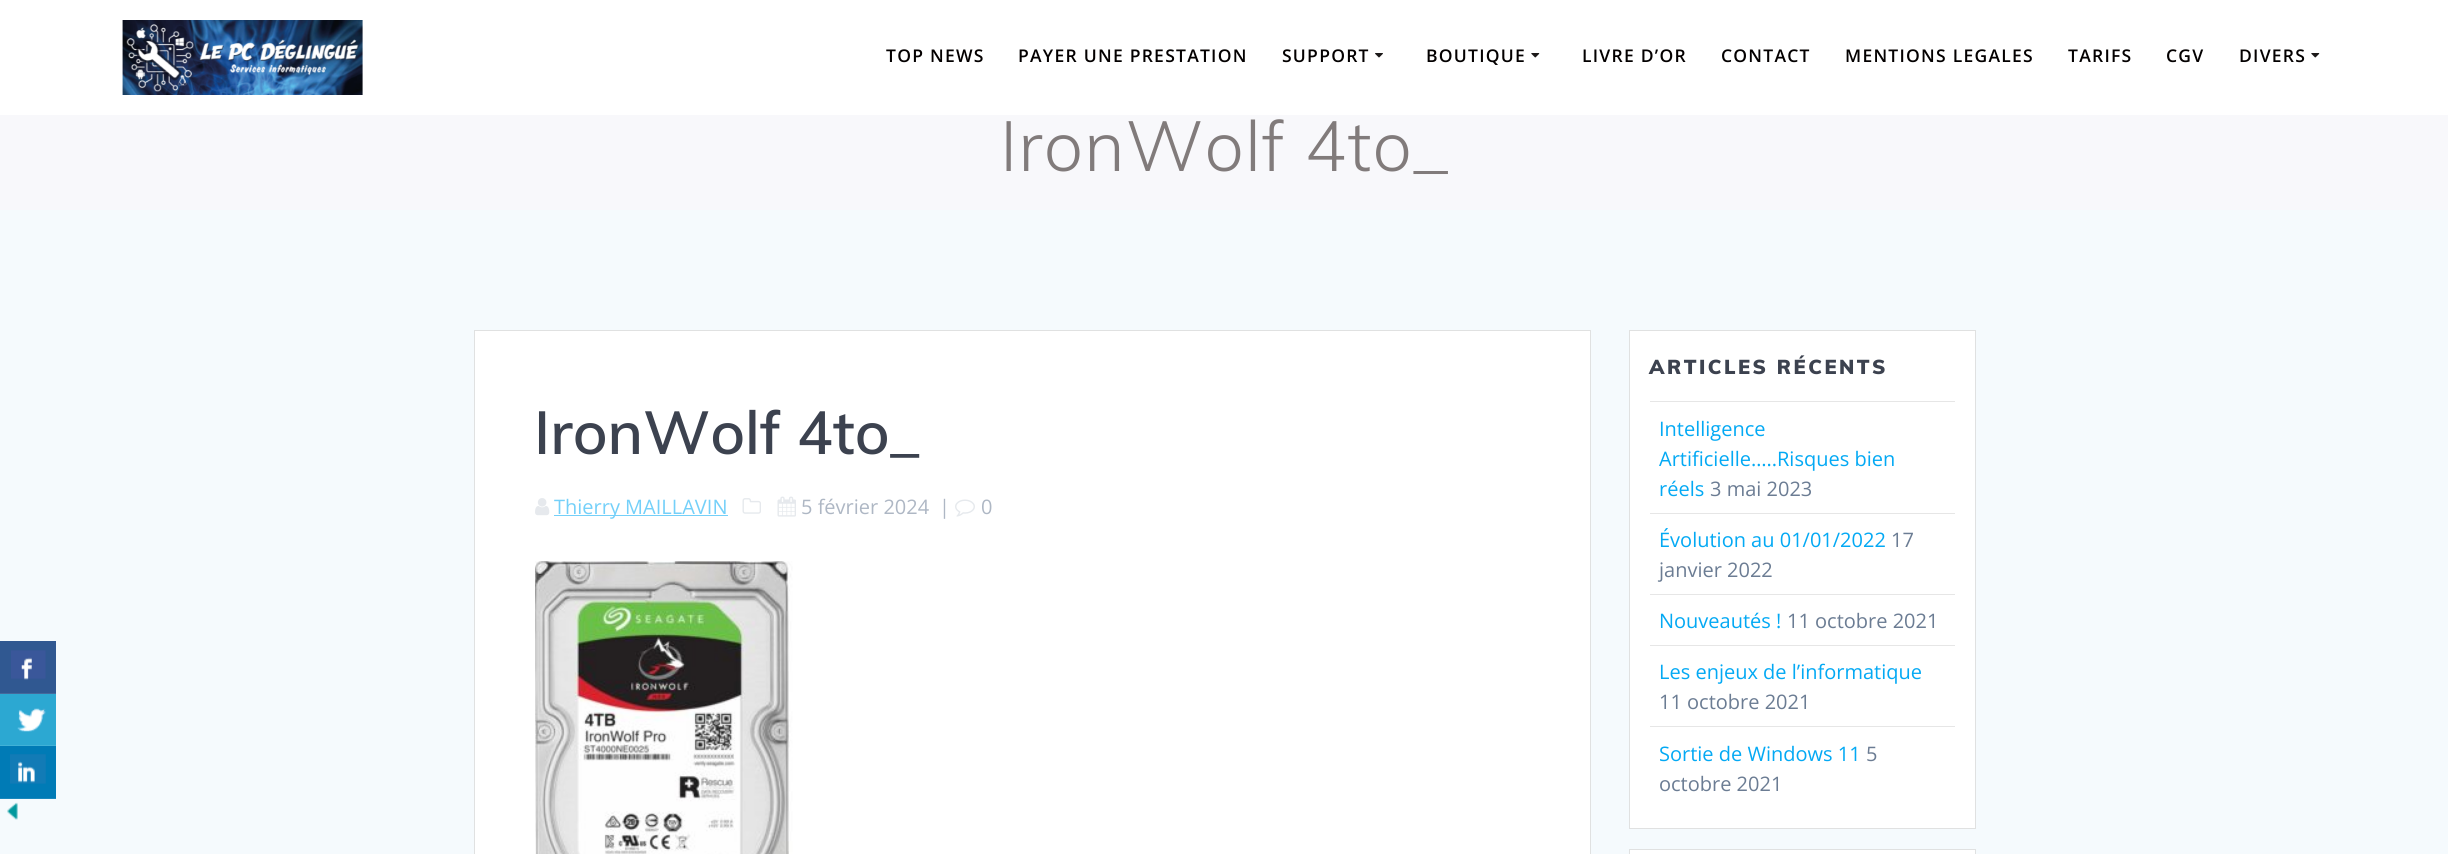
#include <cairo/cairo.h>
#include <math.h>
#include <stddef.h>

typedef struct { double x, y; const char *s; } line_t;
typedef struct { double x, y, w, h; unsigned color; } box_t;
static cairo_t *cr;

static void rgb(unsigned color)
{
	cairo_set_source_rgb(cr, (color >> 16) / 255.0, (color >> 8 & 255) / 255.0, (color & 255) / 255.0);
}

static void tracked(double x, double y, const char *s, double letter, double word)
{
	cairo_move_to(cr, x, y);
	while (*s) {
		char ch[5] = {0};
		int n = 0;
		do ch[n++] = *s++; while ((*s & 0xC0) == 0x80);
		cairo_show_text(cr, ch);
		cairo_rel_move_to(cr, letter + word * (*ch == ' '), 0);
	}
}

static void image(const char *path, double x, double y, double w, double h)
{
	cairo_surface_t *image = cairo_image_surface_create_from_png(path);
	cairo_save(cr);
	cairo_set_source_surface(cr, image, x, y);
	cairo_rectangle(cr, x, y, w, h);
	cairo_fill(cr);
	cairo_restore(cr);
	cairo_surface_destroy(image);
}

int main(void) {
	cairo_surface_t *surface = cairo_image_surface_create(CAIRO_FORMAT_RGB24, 2448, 854);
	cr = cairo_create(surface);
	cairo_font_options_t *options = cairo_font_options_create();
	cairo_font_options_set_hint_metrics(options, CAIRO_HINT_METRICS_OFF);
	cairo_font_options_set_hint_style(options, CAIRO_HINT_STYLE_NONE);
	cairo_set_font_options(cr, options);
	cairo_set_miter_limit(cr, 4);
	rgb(0xf8f8fb);
	cairo_paint(cr);
	rgb(0xffffff);
	cairo_rectangle(cr, 0, 0, 2448, 115);
	cairo_fill(cr);
	image("img/1.png", 122, 20, 241, 75);
	image("img/2.png", 1375, 53, 8, 5);
	image("img/3.png", 1531, 53, 9, 5);
	image("img/3.png", 2311, 53, 9, 5);
	{
		static const box_t items[] = {
			{0, 210, 2448, 644, 0xf5fafd},
			{0, 641, 56, 52, 0x305891},
			{0, 693, 56, 1, 0x45699c},
		};
		for (size_t i = 0; i < sizeof items / sizeof *items; i++) {
			rgb(items[i].color);
			cairo_rectangle(cr, items[i].x, items[i].y, items[i].w, items[i].h);
			cairo_fill(cr);
		}
	}
	image("img/4.png", 11, 650, 35, 30);
	rgb(0x2ca8d2);
	cairo_rectangle(cr, 0, 694, 56, 51);
	cairo_fill(cr);
	rgb(0x41b1d7);
	cairo_rectangle(cr, 0, 745, 56, 1);
	cairo_fill(cr);
	image("img/5.png", 17, 708, 29, 24);
	rgb(0x007bb6);
	cairo_rectangle(cr, 0, 746, 56, 52);
	cairo_fill(cr);
	rgb(0x1a88bd);
	cairo_rectangle(cr, 0, 798, 56, 1);
	cairo_fill(cr);
	image("img/6.png", 10, 754, 36, 30);
	image("img/7.png", 7, 802, 11, 18);
	rgb(0xffffff);
	cairo_rectangle(cr, 474.5, 330.5, 1116, 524);
	cairo_fill_preserve(cr);
	rgb(0xe0e1e1);
	cairo_set_line_width(cr, 1);
	cairo_stroke(cr);
	image("img/8.png", 535, 498, 15, 18);
	rgb(0x74d0f9);
	cairo_rectangle(cr, 554, 515, 174, 1);
	cairo_fill(cr);
	image("img/9.png", 742, 498, 19, 16);
	image("img/10.png", 777, 496, 19, 21);
	image("img/11.png", 955, 499, 20, 18);
	image("img/12.png", 535, 561, 258, 293);
	rgb(0xffffff);
	cairo_rectangle(cr, 1629.5, 330.5, 346, 498);
	cairo_fill_preserve(cr);
	rgb(0xe0e1e1);
	cairo_stroke(cr);
	{
		static const box_t items[] = {
			{1650, 401, 305, 1, 0xe6e6e6},
			{1650, 513, 305, 1, 0xe6e6e6},
			{1650, 594, 305, 1, 0xe6e6e6},
			{1650, 645, 305, 1, 0xe6e6e6},
			{1650, 726, 305, 1, 0xe6e6e6},
		};
		for (size_t i = 0; i < sizeof items / sizeof *items; i++) {
			rgb(items[i].color);
			cairo_rectangle(cr, items[i].x, items[i].y, items[i].w, items[i].h);
			cairo_fill(cr);
		}
	}
	rgb(0xffffff);
	cairo_rectangle(cr, 1629.5, 849.5, 346, 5);
	cairo_fill_preserve(cr);
	rgb(0xe0e1e1);
	cairo_stroke(cr);
	cairo_select_font_face(cr, "Open Sans SemiBold", CAIRO_FONT_SLANT_NORMAL, CAIRO_FONT_WEIGHT_NORMAL);
	cairo_set_font_size(cr, 17.5);
	rgb(0x030000);
	{
		static const line_t items[] = {
			{886, 62, "TOP NEWS"},
			{1018, 62, "PAYER UNE PRESTATION"},
			{1282, 62, "SUPPORT"},
			{1426, 62, "BOUTIQUE"},
			{1582, 62, "LIVRE D’OR"},
			{1721, 62, "CONTACT"},
			{1845, 62, "MENTIONS LEGALES"},
			{2068, 62, "TARIFS"},
			{2166, 62, "CGV"},
			{2239, 62, "DIVERS"},
		};
		for (size_t i = 0; i < sizeof items / sizeof *items; i++) {
			tracked(items[i].x, items[i].y, items[i].s, 1.25, 0);
		}
	}
	cairo_select_font_face(cr, "Muli Light", CAIRO_FONT_SLANT_NORMAL, CAIRO_FONT_WEIGHT_NORMAL);
	cairo_set_font_size(cr, 70);
	rgb(0x817b7b);
	tracked(1000, 171, "IronWolf 4to_", 1.1, 0);
	cairo_select_font_face(cr, "Muli SemiBold", CAIRO_FONT_SLANT_NORMAL, CAIRO_FONT_WEIGHT_NORMAL);
	cairo_set_font_size(cr, 60);
	rgb(0x3c424f);
	cairo_move_to(cr, 534, 454);
	cairo_show_text(cr, "IronWolf 4to_");
	cairo_select_font_face(cr, "Open Sans", CAIRO_FONT_SLANT_NORMAL, CAIRO_FONT_WEIGHT_NORMAL);
	cairo_set_font_size(cr, 20);
	rgb(0x74d0f9);
	cairo_move_to(cr, 554, 514);
	cairo_show_text(cr, "Thierry MAILLAVIN");
	rgb(0xaeb7c4);
	{
		static const line_t items[] = {
			{801, 514, "5 février 2024"},
			{939, 514, "|"},
			{981, 514, "0"},
		};
		for (size_t i = 0; i < sizeof items / sizeof *items; i++) {
			cairo_move_to(cr, items[i].x, items[i].y);
			cairo_show_text(cr, items[i].s);
		}
	}
	cairo_select_font_face(cr, "Muli Black", CAIRO_FONT_SLANT_NORMAL, CAIRO_FONT_WEIGHT_NORMAL);
	rgb(0x3c424f);
	tracked(1649, 374, "ARTICLES RÉCENTS", 2.5, 0);
	cairo_select_font_face(cr, "Open Sans", CAIRO_FONT_SLANT_NORMAL, CAIRO_FONT_WEIGHT_NORMAL);
	rgb(0x03a9f4);
	{
		static const line_t items[] = {
			{1659, 436, "Intelligence"},
			{1659, 466, "Artificielle…..Risques bien"},
			{1659, 496, "réels"},
		};
		for (size_t i = 0; i < sizeof items / sizeof *items; i++) {
			cairo_move_to(cr, items[i].x, items[i].y);
			cairo_show_text(cr, items[i].s);
		}
	}
	rgb(0x6b7c93);
	cairo_move_to(cr, 1710, 496);
	cairo_show_text(cr, "3 mai 2023");
	rgb(0x03a9f4);
	cairo_move_to(cr, 1659, 547);
	cairo_show_text(cr, "Évolution au 01/01/2022");
	rgb(0x6b7c93);
	cairo_move_to(cr, 1891, 547);
	cairo_show_text(cr, "17");
	cairo_move_to(cr, 1659, 577);
	cairo_show_text(cr, "janvier 2022");
	rgb(0x03a9f4);
	cairo_move_to(cr, 1659, 628);
	cairo_show_text(cr, "Nouveautés !");
	rgb(0x6b7c93);
	cairo_move_to(cr, 1787, 628);
	cairo_show_text(cr, "11 octobre 2021");
	rgb(0x03a9f4);
	cairo_move_to(cr, 1659, 679);
	cairo_show_text(cr, "Les enjeux de l’informatique");
	rgb(0x6b7c93);
	cairo_move_to(cr, 1659, 709);
	cairo_show_text(cr, "11 octobre 2021");
	rgb(0x03a9f4);
	cairo_move_to(cr, 1659, 761);
	cairo_show_text(cr, "Sortie de Windows 11");
	rgb(0x6b7c93);
	cairo_move_to(cr, 1866, 761);
	cairo_show_text(cr, "5");
	cairo_move_to(cr, 1659, 791);
	cairo_show_text(cr, "octobre 2021");
	cairo_surface_write_to_png(surface, "page.png");
	cairo_font_options_destroy(options);
	cairo_destroy(cr);
	cairo_surface_destroy(surface);
	return 0;
}
